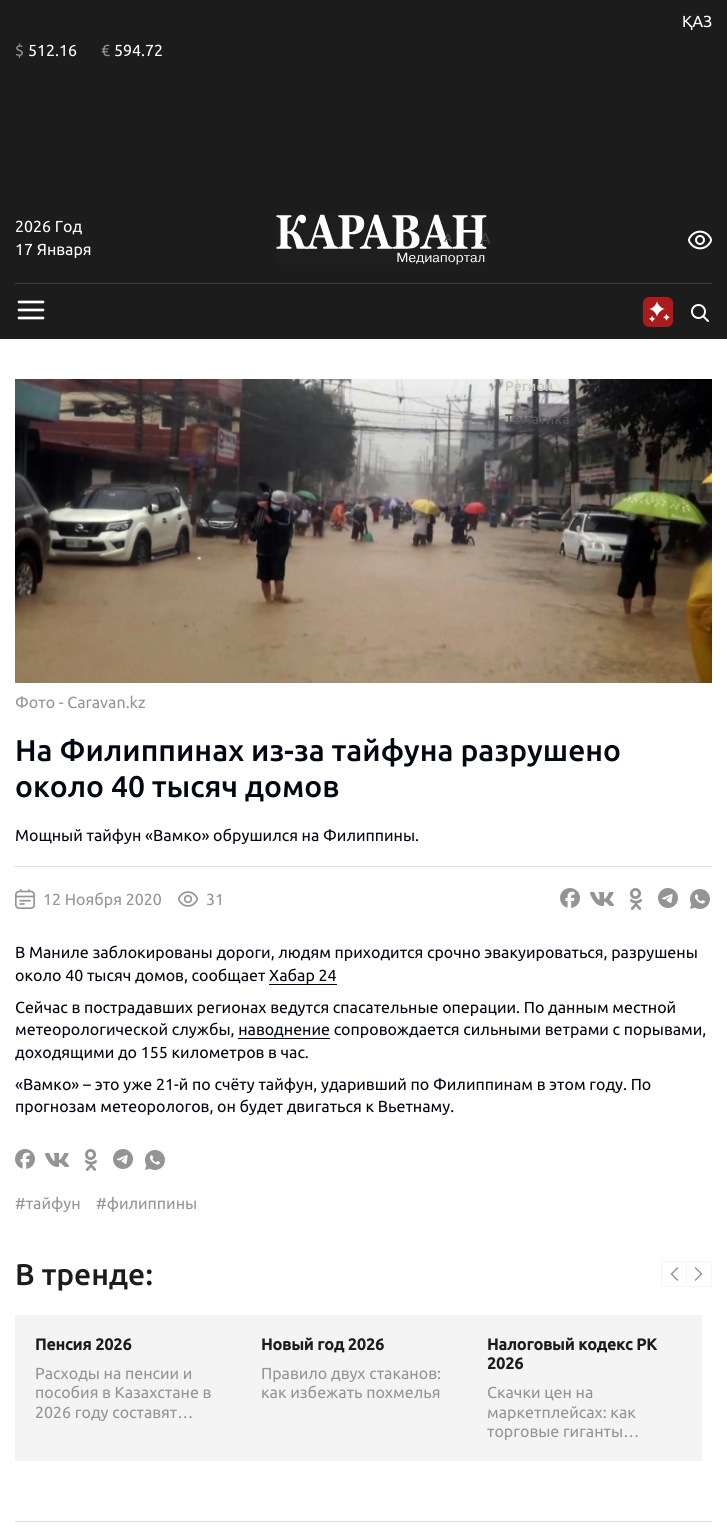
#include <cairo/cairo.h>
#include <math.h>
#include <stddef.h>

typedef struct { double x, y; const char *s; } line_t;
typedef struct { double x, y, w, h; unsigned color; } box_t;
static cairo_t *cr;

static void rgb(unsigned color)
{
	cairo_set_source_rgb(cr, (color >> 16) / 255.0, (color >> 8 & 255) / 255.0, (color & 255) / 255.0);
}

static void image(const char *path, double x, double y, double w, double h)
{
	cairo_surface_t *image = cairo_image_surface_create_from_png(path);
	cairo_save(cr);
	cairo_set_source_surface(cr, image, x, y);
	cairo_rectangle(cr, x, y, w, h);
	cairo_fill(cr);
	cairo_restore(cr);
	cairo_surface_destroy(image);
}

int main(void) {
	cairo_surface_t *surface = cairo_image_surface_create(CAIRO_FORMAT_RGB24, 727, 1525);
	cr = cairo_create(surface);
	cairo_font_options_t *options = cairo_font_options_create();
	cairo_font_options_set_hint_metrics(options, CAIRO_HINT_METRICS_OFF);
	cairo_font_options_set_hint_style(options, CAIRO_HINT_STYLE_NONE);
	cairo_set_font_options(cr, options);
	cairo_set_miter_limit(cr, 4);
	rgb(0xffffff);
	cairo_paint(cr);
	rgb(0x1c1c1c);
	cairo_rectangle(cr, 0, 0, 727, 339);
	cairo_fill(cr);
	image("img/1.png", 276, 214, 211, 51);
	image("img/2.png", 688, 230, 24, 20);
	rgb(0x404040);
	cairo_rectangle(cr, 15, 283, 697, 1);
	cairo_fill(cr);
	cairo_new_path(cr);
	cairo_move_to(cr, 19, 310);
	cairo_line_to(cr, 43, 310);
	cairo_move_to(cr, 19, 302);
	cairo_line_to(cr, 43, 302);
	cairo_move_to(cr, 19, 318);
	cairo_line_to(cr, 43, 318);
	rgb(0xffffff);
	cairo_set_line_width(cr, 2.7);
	cairo_set_line_cap(cr, CAIRO_LINE_CAP_ROUND);
	cairo_set_line_join(cr, CAIRO_LINE_JOIN_ROUND);
	cairo_stroke(cr);
	image("img/3.png", 643, 297, 30, 30);
	image("img/4.png", 691, 304, 18, 18);
	image("img/5.png", 15, 379, 697, 304);
	rgb(0xdddddd);
	cairo_rectangle(cr, 15, 866, 697, 1);
	cairo_fill(cr);
	image("img/6.png", 15, 889, 20, 20);
	image("img/7.png", 178, 891, 20, 16);
	image("img/8.png", 560, 888, 20, 20);
	image("img/9.png", 590, 892, 24, 14);
	image("img/10.png", 630, 888, 12, 22);
	image("img/11.png", 658, 888, 20, 20);
	image("img/12.png", 690, 889, 20, 20);
	rgb(0x030712);
	cairo_rectangle(cr, 269, 984, 68, 1);
	cairo_fill(cr);
	cairo_rectangle(cr, 238, 1038, 92, 1);
	cairo_fill(cr);
	image("img/8.png", 15, 1149, 20, 20);
	image("img/9.png", 45, 1153, 24, 14);
	image("img/10.png", 85, 1149, 12, 22);
	image("img/11.png", 113, 1149, 20, 20);
	image("img/12.png", 145, 1150, 20, 20);
	{
		static const box_t items[] = {
			{661, 1261, 25, 1, 0xf5f5f5},
			{661, 1286, 25, 1, 0xf5f5f5},
			{661, 1261, 1, 26, 0xf5f5f5},
		};
		for (size_t i = 0; i < sizeof items / sizeof *items; i++) {
			rgb(items[i].color);
			cairo_rectangle(cr, items[i].x, items[i].y, items[i].w, items[i].h);
			cairo_fill(cr);
		}
	}
	image("img/13.png", 670, 1267, 9, 14);
	cairo_rectangle(cr, 686.5, 1261.5, 25, 25);
	cairo_set_line_width(cr, 1);
	cairo_set_line_cap(cr, CAIRO_LINE_CAP_BUTT);
	cairo_set_line_join(cr, CAIRO_LINE_JOIN_MITER);
	cairo_stroke(cr);
	image("img/14.png", 695, 1267, 8, 14);
	rgb(0xf4f4f4);
	cairo_rectangle(cr, 15, 1315, 687, 146);
	cairo_fill(cr);
	rgb(0xdddddd);
	cairo_rectangle(cr, 15, 1521, 697, 1);
	cairo_fill(cr);
	cairo_select_font_face(cr, "Ubuntu", CAIRO_FONT_SLANT_NORMAL, CAIRO_FONT_WEIGHT_NORMAL);
	cairo_set_font_size(cr, 16);
	rgb(0xffffff);
	cairo_move_to(cr, 682, 27);
	cairo_show_text(cr, "ҚАЗ");
	rgb(0x949494);
	cairo_move_to(cr, 15, 56);
	cairo_show_text(cr, "$");
	rgb(0xffffff);
	cairo_move_to(cr, 28, 56);
	cairo_show_text(cr, "512.16");
	rgb(0x949494);
	cairo_move_to(cr, 101, 56);
	cairo_show_text(cr, "€");
	rgb(0xffffff);
	{
		static const line_t items[] = {
			{114, 56, "594.72"},
			{15, 232, "2026 Год"},
			{15, 255, "17 Января"},
		};
		for (size_t i = 0; i < sizeof items / sizeof *items; i++) {
			cairo_move_to(cr, items[i].x, items[i].y);
			cairo_show_text(cr, items[i].s);
		}
	}
	cairo_set_font_size(cr, 12);
	rgb(0x515151);
	cairo_move_to(cr, 444, 242);
	cairo_show_text(cr, "A");
	cairo_set_font_size(cr, 16);
	rgb(0x434343);
	cairo_move_to(cr, 480, 244);
	cairo_show_text(cr, "A");
	cairo_select_font_face(cr, "Ubuntu Medium", CAIRO_FONT_SLANT_NORMAL, CAIRO_FONT_WEIGHT_NORMAL);
	cairo_set_font_size(cr, 14);
	rgb(0xc6c6c4);
	cairo_move_to(cr, 505, 391);
	cairo_show_text(cr, "Регион");
	rgb(0x575558);
	cairo_move_to(cr, 505, 424);
	cairo_show_text(cr, "Тематика");
	cairo_select_font_face(cr, "Ubuntu", CAIRO_FONT_SLANT_NORMAL, CAIRO_FONT_WEIGHT_NORMAL);
	cairo_set_font_size(cr, 16);
	rgb(0x949494);
	cairo_move_to(cr, 15, 708);
	cairo_show_text(cr, "Фото - Caravan.kz");
	cairo_select_font_face(cr, "Ubuntu Medium", CAIRO_FONT_SLANT_NORMAL, CAIRO_FONT_WEIGHT_NORMAL);
	cairo_set_font_size(cr, 30);
	rgb(0x030712);
	cairo_move_to(cr, 15, 761);
	cairo_show_text(cr, "На Филиппинах из-за тайфуна разрушено");
	cairo_move_to(cr, 15, 797);
	cairo_show_text(cr, "около 40 тысяч домов");
	cairo_select_font_face(cr, "Ubuntu", CAIRO_FONT_SLANT_NORMAL, CAIRO_FONT_WEIGHT_NORMAL);
	cairo_set_font_size(cr, 16);
	cairo_move_to(cr, 15, 841);
	cairo_show_text(cr, "Мощный тайфун «Вамко» обрушился на Филиппины.");
	rgb(0x949494);
	cairo_move_to(cr, 43, 905);
	cairo_show_text(cr, "12 Ноября 2020");
	cairo_move_to(cr, 206, 905);
	cairo_show_text(cr, "31");
	rgb(0x030712);
	{
		static const line_t items[] = {
			{15, 958, "В Маниле заблокированы дороги, людям приходится срочно эвакуироваться, разрушены"},
			{15, 981, "около 40 тысяч домов, сообщает Хабар 24"},
			{15, 1013, "Сейчас в пострадавших регионах ведутся спасательные операции. По данным местной"},
			{15, 1035, "метеорологической службы, наводнение сопровождается сильными ветрами с порывами,"},
			{15, 1058, "доходящими до 155 километров в час."},
			{15, 1090, "«Вамко» – это уже 21-й по счёту тайфун, ударивший по Филиппинам в этом году. По"},
			{15, 1112, "прогнозам метеорологов, он будет двигаться к Вьетнаму."},
		};
		for (size_t i = 0; i < sizeof items / sizeof *items; i++) {
			cairo_move_to(cr, items[i].x, items[i].y);
			cairo_show_text(cr, items[i].s);
		}
	}
	rgb(0x949494);
	cairo_move_to(cr, 15, 1209);
	cairo_show_text(cr, "#тайфун");
	cairo_move_to(cr, 96, 1209);
	cairo_show_text(cr, "#филиппины");
	cairo_select_font_face(cr, "Ubuntu Medium", CAIRO_FONT_SLANT_NORMAL, CAIRO_FONT_WEIGHT_NORMAL);
	cairo_set_font_size(cr, 30);
	rgb(0x1c1c1c);
	cairo_move_to(cr, 15, 1285);
	cairo_show_text(cr, "В тренде:");
	cairo_select_font_face(cr, "Ubuntu", CAIRO_FONT_SLANT_NORMAL, CAIRO_FONT_WEIGHT_BOLD);
	cairo_set_font_size(cr, 16);
	cairo_move_to(cr, 35, 1350);
	cairo_show_text(cr, "Пенсия 2026");
	cairo_select_font_face(cr, "Ubuntu", CAIRO_FONT_SLANT_NORMAL, CAIRO_FONT_WEIGHT_NORMAL);
	rgb(0x949494);
	{
		static const line_t items[] = {
			{35, 1379, "Расходы на пенсии и"},
			{35, 1398, "пособия в Казахстане в"},
			{35, 1418, "2026 году составят…"},
		};
		for (size_t i = 0; i < sizeof items / sizeof *items; i++) {
			cairo_move_to(cr, items[i].x, items[i].y);
			cairo_show_text(cr, items[i].s);
		}
	}
	cairo_select_font_face(cr, "Ubuntu", CAIRO_FONT_SLANT_NORMAL, CAIRO_FONT_WEIGHT_BOLD);
	rgb(0x1c1c1c);
	cairo_move_to(cr, 261, 1350);
	cairo_show_text(cr, "Новый год 2026");
	cairo_select_font_face(cr, "Ubuntu", CAIRO_FONT_SLANT_NORMAL, CAIRO_FONT_WEIGHT_NORMAL);
	rgb(0x949494);
	cairo_move_to(cr, 261, 1379);
	cairo_show_text(cr, "Правило двух стаканов:");
	cairo_move_to(cr, 261, 1398);
	cairo_show_text(cr, "как избежать похмелья");
	cairo_select_font_face(cr, "Ubuntu", CAIRO_FONT_SLANT_NORMAL, CAIRO_FONT_WEIGHT_BOLD);
	rgb(0x1c1c1c);
	cairo_move_to(cr, 487, 1350);
	cairo_show_text(cr, "Налоговый кодекс РК");
	cairo_move_to(cr, 487, 1369);
	cairo_show_text(cr, "2026");
	cairo_select_font_face(cr, "Ubuntu", CAIRO_FONT_SLANT_NORMAL, CAIRO_FONT_WEIGHT_NORMAL);
	rgb(0x949494);
	{
		static const line_t items[] = {
			{487, 1398, "Скачки цен на"},
			{487, 1418, "маркетплейсах: как"},
			{487, 1437, "торговые гиганты…"},
		};
		for (size_t i = 0; i < sizeof items / sizeof *items; i++) {
			cairo_move_to(cr, items[i].x, items[i].y);
			cairo_show_text(cr, items[i].s);
		}
	}
	cairo_surface_write_to_png(surface, "page.png");
	cairo_font_options_destroy(options);
	cairo_destroy(cr);
	cairo_surface_destroy(surface);
	return 0;
}
